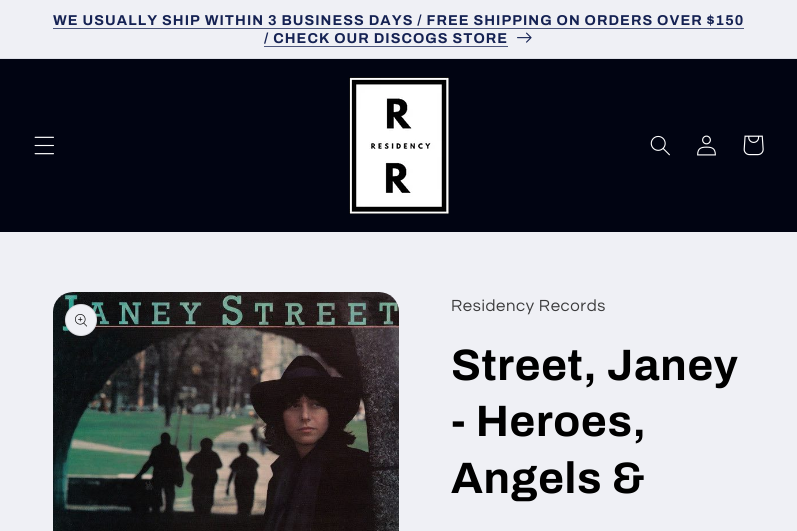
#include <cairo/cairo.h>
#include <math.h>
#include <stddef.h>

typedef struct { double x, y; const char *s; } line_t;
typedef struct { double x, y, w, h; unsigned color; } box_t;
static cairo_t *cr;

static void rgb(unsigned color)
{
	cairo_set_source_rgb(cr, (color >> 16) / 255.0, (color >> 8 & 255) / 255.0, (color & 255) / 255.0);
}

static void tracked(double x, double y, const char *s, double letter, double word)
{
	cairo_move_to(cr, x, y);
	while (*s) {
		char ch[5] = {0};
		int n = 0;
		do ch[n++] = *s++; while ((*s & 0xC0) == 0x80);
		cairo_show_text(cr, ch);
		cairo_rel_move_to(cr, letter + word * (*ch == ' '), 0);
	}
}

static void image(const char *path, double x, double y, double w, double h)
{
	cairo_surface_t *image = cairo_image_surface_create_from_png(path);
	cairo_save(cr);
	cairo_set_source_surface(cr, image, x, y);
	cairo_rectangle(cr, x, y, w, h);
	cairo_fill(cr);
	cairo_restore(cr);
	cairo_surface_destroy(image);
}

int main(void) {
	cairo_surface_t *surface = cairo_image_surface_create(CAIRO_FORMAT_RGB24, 797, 531);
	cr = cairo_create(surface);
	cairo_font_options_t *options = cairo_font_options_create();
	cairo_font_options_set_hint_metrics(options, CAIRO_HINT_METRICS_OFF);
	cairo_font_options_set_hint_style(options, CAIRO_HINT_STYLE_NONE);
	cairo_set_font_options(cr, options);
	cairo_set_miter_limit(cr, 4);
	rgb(0xeff0f5);
	cairo_paint(cr);
	{
		static const box_t items[] = {
			{0, 58, 797, 1, 0xdee0e8},
			{53, 28, 691, 1, 0x4c567c},
			{264, 46, 244, 1, 0x4c567c},
		};
		for (size_t i = 0; i < sizeof items / sizeof *items; i++) {
			rgb(items[i].color);
			cairo_rectangle(cr, items[i].x, items[i].y, items[i].w, items[i].h);
			cairo_fill(cr);
		}
	}
	image("img/1.png", 517, 32, 15, 11);
	rgb(0x010412);
	cairo_rectangle(cr, 0, 59, 797, 173);
	cairo_fill(cr);
	image("img/2.png", 34, 136, 20, 19);
	image("img/3.png", 349, 77, 100, 137);
	image("img/4.png", 650, 135, 20, 21);
	image("img/5.png", 697, 135, 19, 21);
	image("img/6.png", 743, 135, 21, 21);
	image("img/7.png", 53, 292, 346, 239);
	rgb(0xeff0f5);
	cairo_arc(cr, 81, 320, 16, 0, 2 * M_PI);
	cairo_fill(cr);
	cairo_arc(cr, 81, 320, 15.5, 0, 2 * M_PI);
	cairo_set_source_rgba(cr, 0, 0, 0, 0.1);
	cairo_set_line_width(cr, 1);
	cairo_stroke(cr);
	image("img/8.png", 75, 314, 12, 13);
	cairo_select_font_face(cr, "Archivo", CAIRO_FONT_SLANT_NORMAL, CAIRO_FONT_WEIGHT_BOLD);
	cairo_set_font_size(cr, 14.3);
	rgb(0x152253);
	tracked(53, 25, "WE USUALLY SHIP WITHIN 3 BUSINESS DAYS / FREE SHIPPING ON ORDERS OVER $150", 1.05, 0);
	tracked(264, 43, "/ CHECK OUR DISCOGS STORE", 1.05, 0);
	cairo_select_font_face(cr, "Questrial", CAIRO_FONT_SLANT_NORMAL, CAIRO_FONT_WEIGHT_NORMAL);
	cairo_set_font_size(cr, 16.75);
	rgb(0x3c3c3d);
	tracked(451, 311, "Residency Records", 0.6, 0);
	cairo_select_font_face(cr, "Archivo", CAIRO_FONT_SLANT_NORMAL, CAIRO_FONT_WEIGHT_BOLD);
	cairo_set_font_size(cr, 44);
	rgb(0x000000);
	{
		static const line_t items[] = {
			{451, 380, "Street, Janey"},
			{451, 436, "- Heroes,"},
			{451, 493, "Angels &"},
		};
		for (size_t i = 0; i < sizeof items / sizeof *items; i++) {
			tracked(items[i].x, items[i].y, items[i].s, 0.7, 0);
		}
	}
	cairo_surface_write_to_png(surface, "page.png");
	cairo_font_options_destroy(options);
	cairo_destroy(cr);
	cairo_surface_destroy(surface);
	return 0;
}
